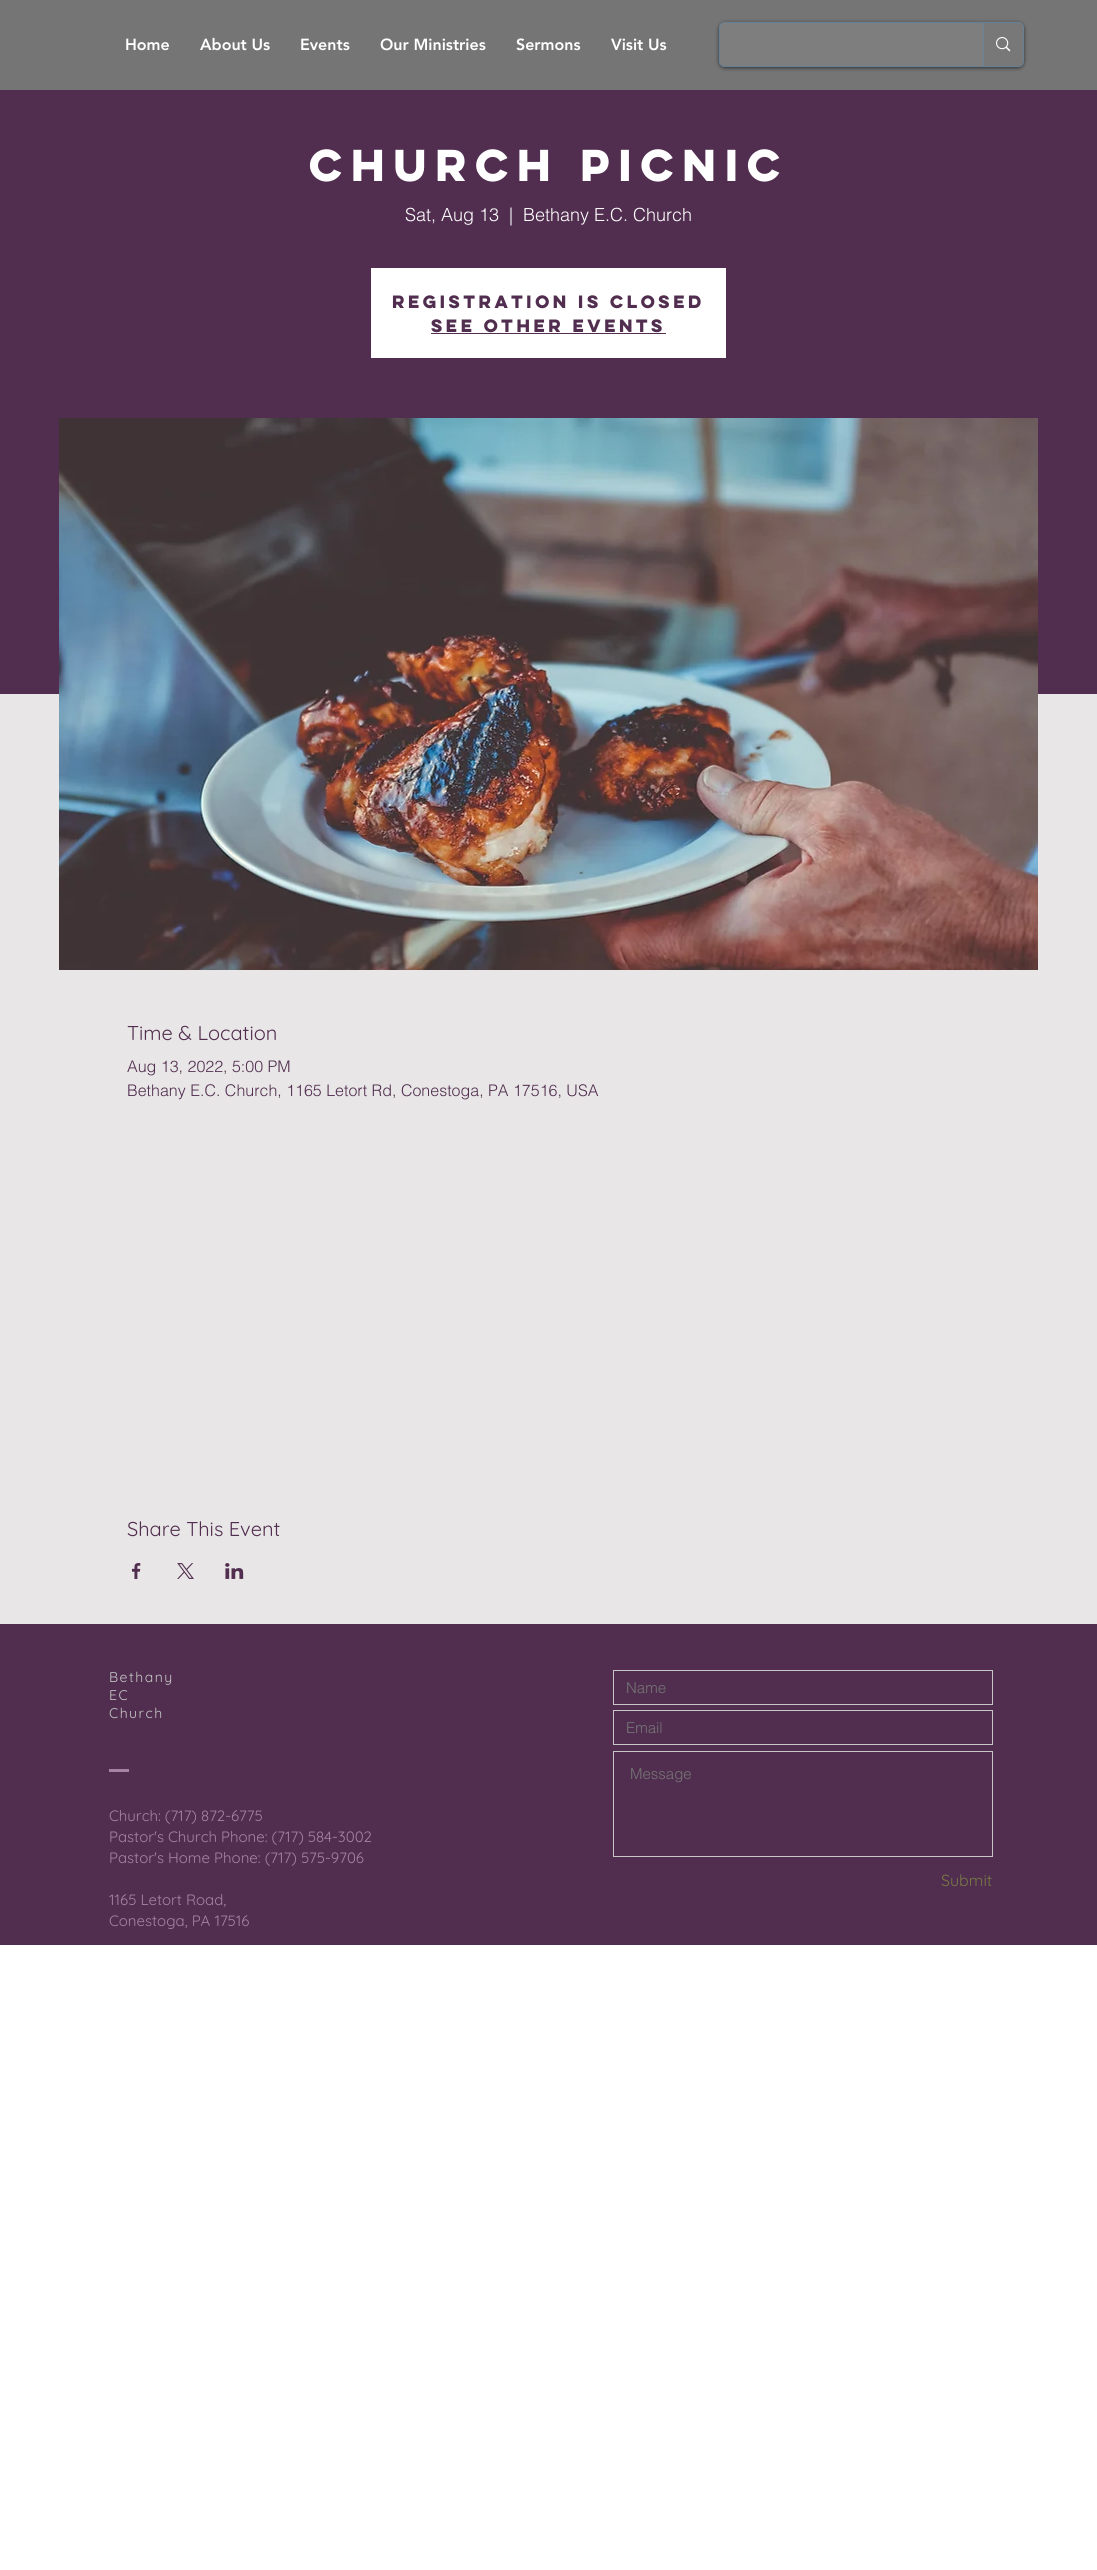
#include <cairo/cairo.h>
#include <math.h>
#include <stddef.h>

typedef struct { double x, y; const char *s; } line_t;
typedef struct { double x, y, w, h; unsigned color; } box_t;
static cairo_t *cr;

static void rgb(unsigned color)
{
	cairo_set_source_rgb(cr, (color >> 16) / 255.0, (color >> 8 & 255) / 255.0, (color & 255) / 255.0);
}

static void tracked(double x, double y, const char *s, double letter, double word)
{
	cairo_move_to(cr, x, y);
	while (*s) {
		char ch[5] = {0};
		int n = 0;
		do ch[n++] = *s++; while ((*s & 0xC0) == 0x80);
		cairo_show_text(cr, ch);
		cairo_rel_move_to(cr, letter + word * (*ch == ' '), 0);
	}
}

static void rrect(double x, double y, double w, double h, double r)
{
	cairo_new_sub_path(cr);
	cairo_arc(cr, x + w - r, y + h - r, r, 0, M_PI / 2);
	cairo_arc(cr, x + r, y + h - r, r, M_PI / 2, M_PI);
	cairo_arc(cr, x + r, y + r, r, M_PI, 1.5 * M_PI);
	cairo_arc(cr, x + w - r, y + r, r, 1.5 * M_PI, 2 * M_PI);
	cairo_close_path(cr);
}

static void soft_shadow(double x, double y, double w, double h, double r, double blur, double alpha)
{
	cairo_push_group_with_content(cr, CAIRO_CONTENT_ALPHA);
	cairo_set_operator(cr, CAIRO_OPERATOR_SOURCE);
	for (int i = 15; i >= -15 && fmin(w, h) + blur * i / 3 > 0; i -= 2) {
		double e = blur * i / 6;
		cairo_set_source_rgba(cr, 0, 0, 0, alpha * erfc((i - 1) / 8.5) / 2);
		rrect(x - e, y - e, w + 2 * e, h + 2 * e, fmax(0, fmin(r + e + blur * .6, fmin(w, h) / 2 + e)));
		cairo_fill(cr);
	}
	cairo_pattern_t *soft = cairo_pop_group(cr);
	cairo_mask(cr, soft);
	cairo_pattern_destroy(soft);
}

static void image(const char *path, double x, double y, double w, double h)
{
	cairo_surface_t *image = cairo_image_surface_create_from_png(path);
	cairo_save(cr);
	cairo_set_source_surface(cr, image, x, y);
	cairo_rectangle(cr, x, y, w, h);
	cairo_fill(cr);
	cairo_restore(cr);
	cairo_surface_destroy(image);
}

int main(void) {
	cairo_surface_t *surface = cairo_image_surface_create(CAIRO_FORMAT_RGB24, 1097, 2570);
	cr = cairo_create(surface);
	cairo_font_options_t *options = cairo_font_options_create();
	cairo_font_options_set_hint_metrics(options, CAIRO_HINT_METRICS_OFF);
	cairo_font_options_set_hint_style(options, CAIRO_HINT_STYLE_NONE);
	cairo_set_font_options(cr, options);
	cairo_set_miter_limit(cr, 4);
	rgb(0xffffff);
	cairo_paint(cr);
	rgb(0x757575);
	cairo_rectangle(cr, 0, 0, 1097, 90);
	cairo_fill(cr);
	cairo_save(cr);
	cairo_set_fill_rule(cr, CAIRO_FILL_RULE_EVEN_ODD);
	cairo_new_path(cr);
	cairo_move_to(cr, 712, 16);
	cairo_line_to(cr, 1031, 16);
	cairo_line_to(cr, 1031, 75);
	cairo_line_to(cr, 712, 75);
	cairo_close_path(cr);
	cairo_move_to(cr, 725, 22);
	cairo_line_to(cr, 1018, 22);
	cairo_curve_to(cr, 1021.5, 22, 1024, 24.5, 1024, 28);
	cairo_line_to(cr, 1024, 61);
	cairo_curve_to(cr, 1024, 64.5, 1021.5, 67, 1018, 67);
	cairo_line_to(cr, 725, 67);
	cairo_curve_to(cr, 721.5, 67, 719, 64.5, 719, 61);
	cairo_line_to(cr, 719, 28);
	cairo_curve_to(cr, 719, 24.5, 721.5, 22, 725, 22);
	cairo_close_path(cr);
	cairo_clip(cr);
	rgb(0x000000);
	soft_shadow(719, 23, 305, 45, 6, 2, 0.6);
	cairo_restore(cr);
	rrect(719.5, 22.5, 304, 44, 5.5);
	cairo_set_source_rgba(cr, 0.239, 0.608, 0.914, 0.28);
	cairo_set_line_width(cr, 1);
	cairo_stroke(cr);
	cairo_set_source_rgba(cr, 0.91, 0.902, 0.902, 0.09);
	rrect(720, 23, 303, 43, 5);
	cairo_fill(cr);
	cairo_set_source_rgba(cr, 0.459, 0.459, 0.459, 0.67);
	cairo_new_path(cr);
	cairo_move_to(cr, 983, 23);
	cairo_line_to(cr, 1018, 23);
	cairo_curve_to(cr, 1021, 23, 1023, 25, 1023, 28);
	cairo_line_to(cr, 1023, 61);
	cairo_curve_to(cr, 1023, 64, 1021, 66, 1018, 66);
	cairo_line_to(cr, 983, 66);
	cairo_close_path(cr);
	cairo_fill(cr);
	rgb(0x688298);
	cairo_rectangle(cr, 983, 23, 1, 43);
	cairo_fill(cr);
	image("img/1.png", 996, 37, 15, 15);
	{
		static const box_t items[] = {
			{0, 90, 1097, 604, 0x512e4f},
			{371, 268, 355, 90, 0xffffff},
			{431, 333, 235, 1, 0x512e4f},
			{0, 694, 1097, 930, 0xe8e6e6},
		};
		for (size_t i = 0; i < sizeof items / sizeof *items; i++) {
			rgb(items[i].color);
			cairo_rectangle(cr, items[i].x, items[i].y, items[i].w, items[i].h);
			cairo_fill(cr);
		}
	}
	image("img/2.png", 59, 418, 979, 552);
	image("img/3.png", 132, 1563, 9, 16);
	image("img/4.png", 177, 1563, 17, 16);
	image("img/5.png", 225, 1563, 19, 16);
	rgb(0x512e4f);
	cairo_rectangle(cr, 0, 1624, 1097, 321);
	cairo_fill(cr);
	cairo_rectangle(cr, 613.5, 1670.5, 379, 34);
	rgb(0xc7c7c7);
	cairo_stroke(cr);
	cairo_rectangle(cr, 613.5, 1710.5, 379, 34);
	cairo_stroke(cr);
	cairo_rectangle(cr, 613.5, 1751.5, 379, 105);
	cairo_stroke(cr);
	rgb(0xa682a4);
	cairo_rectangle(cr, 109, 1769, 20, 3);
	cairo_fill(cr);
	cairo_select_font_face(cr, "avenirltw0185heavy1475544 Black", CAIRO_FONT_SLANT_NORMAL, CAIRO_FONT_WEIGHT_NORMAL);
	cairo_set_font_size(cr, 16);
	rgb(0xffffff);
	{
		static const line_t items[] = {
			{125, 50, "Home"},
			{200, 50, "About Us"},
			{300, 50, "Events"},
			{380, 50, "Our Ministries"},
			{516, 50, "Sermons"},
			{611, 50, "Visit Us"},
		};
		for (size_t i = 0; i < sizeof items / sizeof *items; i++) {
			cairo_move_to(cr, items[i].x, items[i].y);
			cairo_show_text(cr, items[i].s);
		}
	}
	cairo_select_font_face(cr, "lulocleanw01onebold", CAIRO_FONT_SLANT_NORMAL, CAIRO_FONT_WEIGHT_BOLD);
	cairo_set_font_size(cr, 40);
	cairo_move_to(cr, 309, 181);
	cairo_show_text(cr, "Church Picnic");
	cairo_select_font_face(cr, "helvetica Light", CAIRO_FONT_SLANT_NORMAL, CAIRO_FONT_WEIGHT_NORMAL);
	cairo_set_font_size(cr, 18);
	{
		static const line_t items[] = {
			{405, 221, "Sat, Aug 13"},
			{509, 221, "|"},
			{523, 221, "Bethany E.C. Church"},
		};
		for (size_t i = 0; i < sizeof items / sizeof *items; i++) {
			cairo_move_to(cr, items[i].x, items[i].y);
			cairo_show_text(cr, items[i].s);
		}
	}
	cairo_select_font_face(cr, "lulocleanw01onebold", CAIRO_FONT_SLANT_NORMAL, CAIRO_FONT_WEIGHT_BOLD);
	cairo_set_font_size(cr, 16);
	rgb(0x512e4f);
	cairo_move_to(cr, 392, 308);
	cairo_show_text(cr, "Registration is closed");
	cairo_move_to(cr, 431, 332);
	cairo_show_text(cr, "See other events");
	cairo_select_font_face(cr, "Quicksand", CAIRO_FONT_SLANT_NORMAL, CAIRO_FONT_WEIGHT_NORMAL);
	cairo_set_font_size(cr, 20);
	cairo_move_to(cr, 127, 1040);
	cairo_show_text(cr, "Time & Location");
	cairo_select_font_face(cr, "helvetica Light", CAIRO_FONT_SLANT_NORMAL, CAIRO_FONT_WEIGHT_NORMAL);
	cairo_set_font_size(cr, 16);
	cairo_move_to(cr, 127, 1072);
	cairo_show_text(cr, "Aug 13, 2022, 5:00 PM");
	cairo_move_to(cr, 127, 1096);
	cairo_show_text(cr, "Bethany E.C. Church, 1165 Letort Rd, Conestoga, PA 17516, USA");
	cairo_select_font_face(cr, "Quicksand", CAIRO_FONT_SLANT_NORMAL, CAIRO_FONT_WEIGHT_NORMAL);
	cairo_set_font_size(cr, 20);
	cairo_move_to(cr, 127, 1536);
	cairo_show_text(cr, "Share This Event");
	cairo_set_font_size(cr, 14);
	rgb(0xc7c7c7);
	{
		static const line_t items[] = {
			{109, 1682, "Bethany"},
			{109, 1700, "EC"},
			{109, 1718, "Church"},
		};
		for (size_t i = 0; i < sizeof items / sizeof *items; i++) {
			tracked(items[i].x, items[i].y, items[i].s, 1.5, 0);
		}
	}
	cairo_select_font_face(cr, "helvetica Light", CAIRO_FONT_SLANT_NORMAL, CAIRO_FONT_WEIGHT_NORMAL);
	cairo_set_font_size(cr, 15);
	rgb(0x757575);
	{
		static const line_t items[] = {
			{626, 1693, "Name"},
			{626, 1733, "Email"},
			{630, 1779, "Message"},
		};
		for (size_t i = 0; i < sizeof items / sizeof *items; i++) {
			cairo_move_to(cr, items[i].x, items[i].y);
			cairo_show_text(cr, items[i].s);
		}
	}
	cairo_select_font_face(cr, "Quicksand", CAIRO_FONT_SLANT_NORMAL, CAIRO_FONT_WEIGHT_NORMAL);
	cairo_set_font_size(cr, 16);
	rgb(0x787945);
	cairo_move_to(cr, 941, 1886);
	cairo_show_text(cr, "Submit");
	cairo_set_font_size(cr, 15);
	rgb(0xa682a4);
	{
		static const line_t items[] = {
			{109, 1821, "Church: (717) 872-6775"},
			{109, 1842, "Pastor's Church Phone: (717) 584-3002"},
			{109, 1863, "Pastor's Home Phone: (717) 575-9706"},
			{109, 1905, "1165 Letort Road,"},
			{109, 1926, "Conestoga, PA 17516"},
		};
		for (size_t i = 0; i < sizeof items / sizeof *items; i++) {
			cairo_move_to(cr, items[i].x, items[i].y);
			cairo_show_text(cr, items[i].s);
		}
	}
	cairo_surface_write_to_png(surface, "page.png");
	cairo_font_options_destroy(options);
	cairo_destroy(cr);
	cairo_surface_destroy(surface);
	return 0;
}
